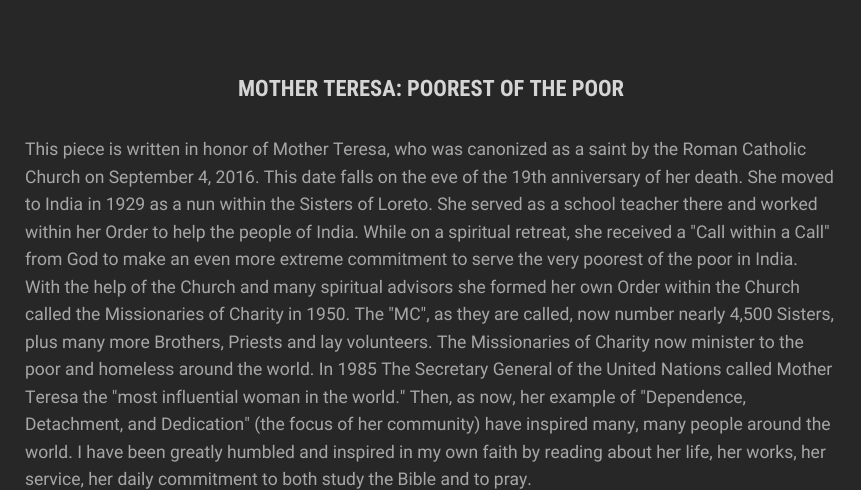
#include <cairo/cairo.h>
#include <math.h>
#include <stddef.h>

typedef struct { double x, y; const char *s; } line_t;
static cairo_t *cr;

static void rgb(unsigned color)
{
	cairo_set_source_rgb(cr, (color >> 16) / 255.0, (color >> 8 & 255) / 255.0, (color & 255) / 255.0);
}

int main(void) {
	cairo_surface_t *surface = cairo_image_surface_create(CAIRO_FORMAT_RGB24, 861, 490);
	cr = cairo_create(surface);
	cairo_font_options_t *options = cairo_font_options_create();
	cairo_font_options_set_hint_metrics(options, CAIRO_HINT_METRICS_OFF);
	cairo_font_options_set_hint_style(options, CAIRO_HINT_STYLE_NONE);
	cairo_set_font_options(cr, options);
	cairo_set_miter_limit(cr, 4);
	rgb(0x272727);
	cairo_paint(cr);
	cairo_select_font_face(cr, "Roboto Condensed", CAIRO_FONT_SLANT_NORMAL, CAIRO_FONT_WEIGHT_BOLD);
	cairo_set_font_size(cr, 22.5);
	rgb(0xd5d5d5);
	cairo_move_to(cr, 238, 96);
	cairo_show_text(cr, "MOTHER TERESA: POOREST OF THE POOR");
	cairo_select_font_face(cr, "Roboto", CAIRO_FONT_SLANT_NORMAL, CAIRO_FONT_WEIGHT_NORMAL);
	cairo_set_font_size(cr, 17.5);
	rgb(0xa6a6a6);
	{
		static const line_t items[] = {
			{25, 155, "This piece is written in honor of Mother Teresa, who was canonized as a saint by the Roman Catholic"},
			{25, 183, "Church on September 4, 2016. This date falls on the eve of the 19th anniversary of her death. She moved"},
			{25, 210, "to India in 1929 as a nun within the Sisters of Loreto. She served as a school teacher there and worked"},
			{25, 238, "within her Order to help the people of India. While on a spiritual retreat, she received a \"Call within a Call\""},
			{25, 265, "from God to make an even more extreme commitment to serve the very poorest of the poor in India."},
			{25, 293, "With the help of the Church and many spiritual advisors she formed her own Order within the Church"},
			{25, 320, "called the Missionaries of Charity in 1950. The \"MC\", as they are called, now number nearly 4,500 Sisters,"},
			{25, 348, "plus many more Brothers, Priests and lay volunteers. The Missionaries of Charity now minister to the"},
			{25, 375, "poor and homeless around the world. In 1985 The Secretary General of the United Nations called Mother"},
			{25, 403, "Teresa the \"most influential woman in the world.\" Then, as now, her example of \"Dependence,"},
			{25, 430, "Detachment, and Dedication\" (the focus of her community) have inspired many, many people around the"},
			{25, 458, "world. I have been greatly humbled and inspired in my own faith by reading about her life, her works, her"},
			{25, 485, "service, her daily commitment to both study the Bible and to pray."},
		};
		for (size_t i = 0; i < sizeof items / sizeof *items; i++) {
			cairo_move_to(cr, items[i].x, items[i].y);
			cairo_show_text(cr, items[i].s);
		}
	}
	cairo_surface_write_to_png(surface, "page.png");
	cairo_font_options_destroy(options);
	cairo_destroy(cr);
	cairo_surface_destroy(surface);
	return 0;
}
